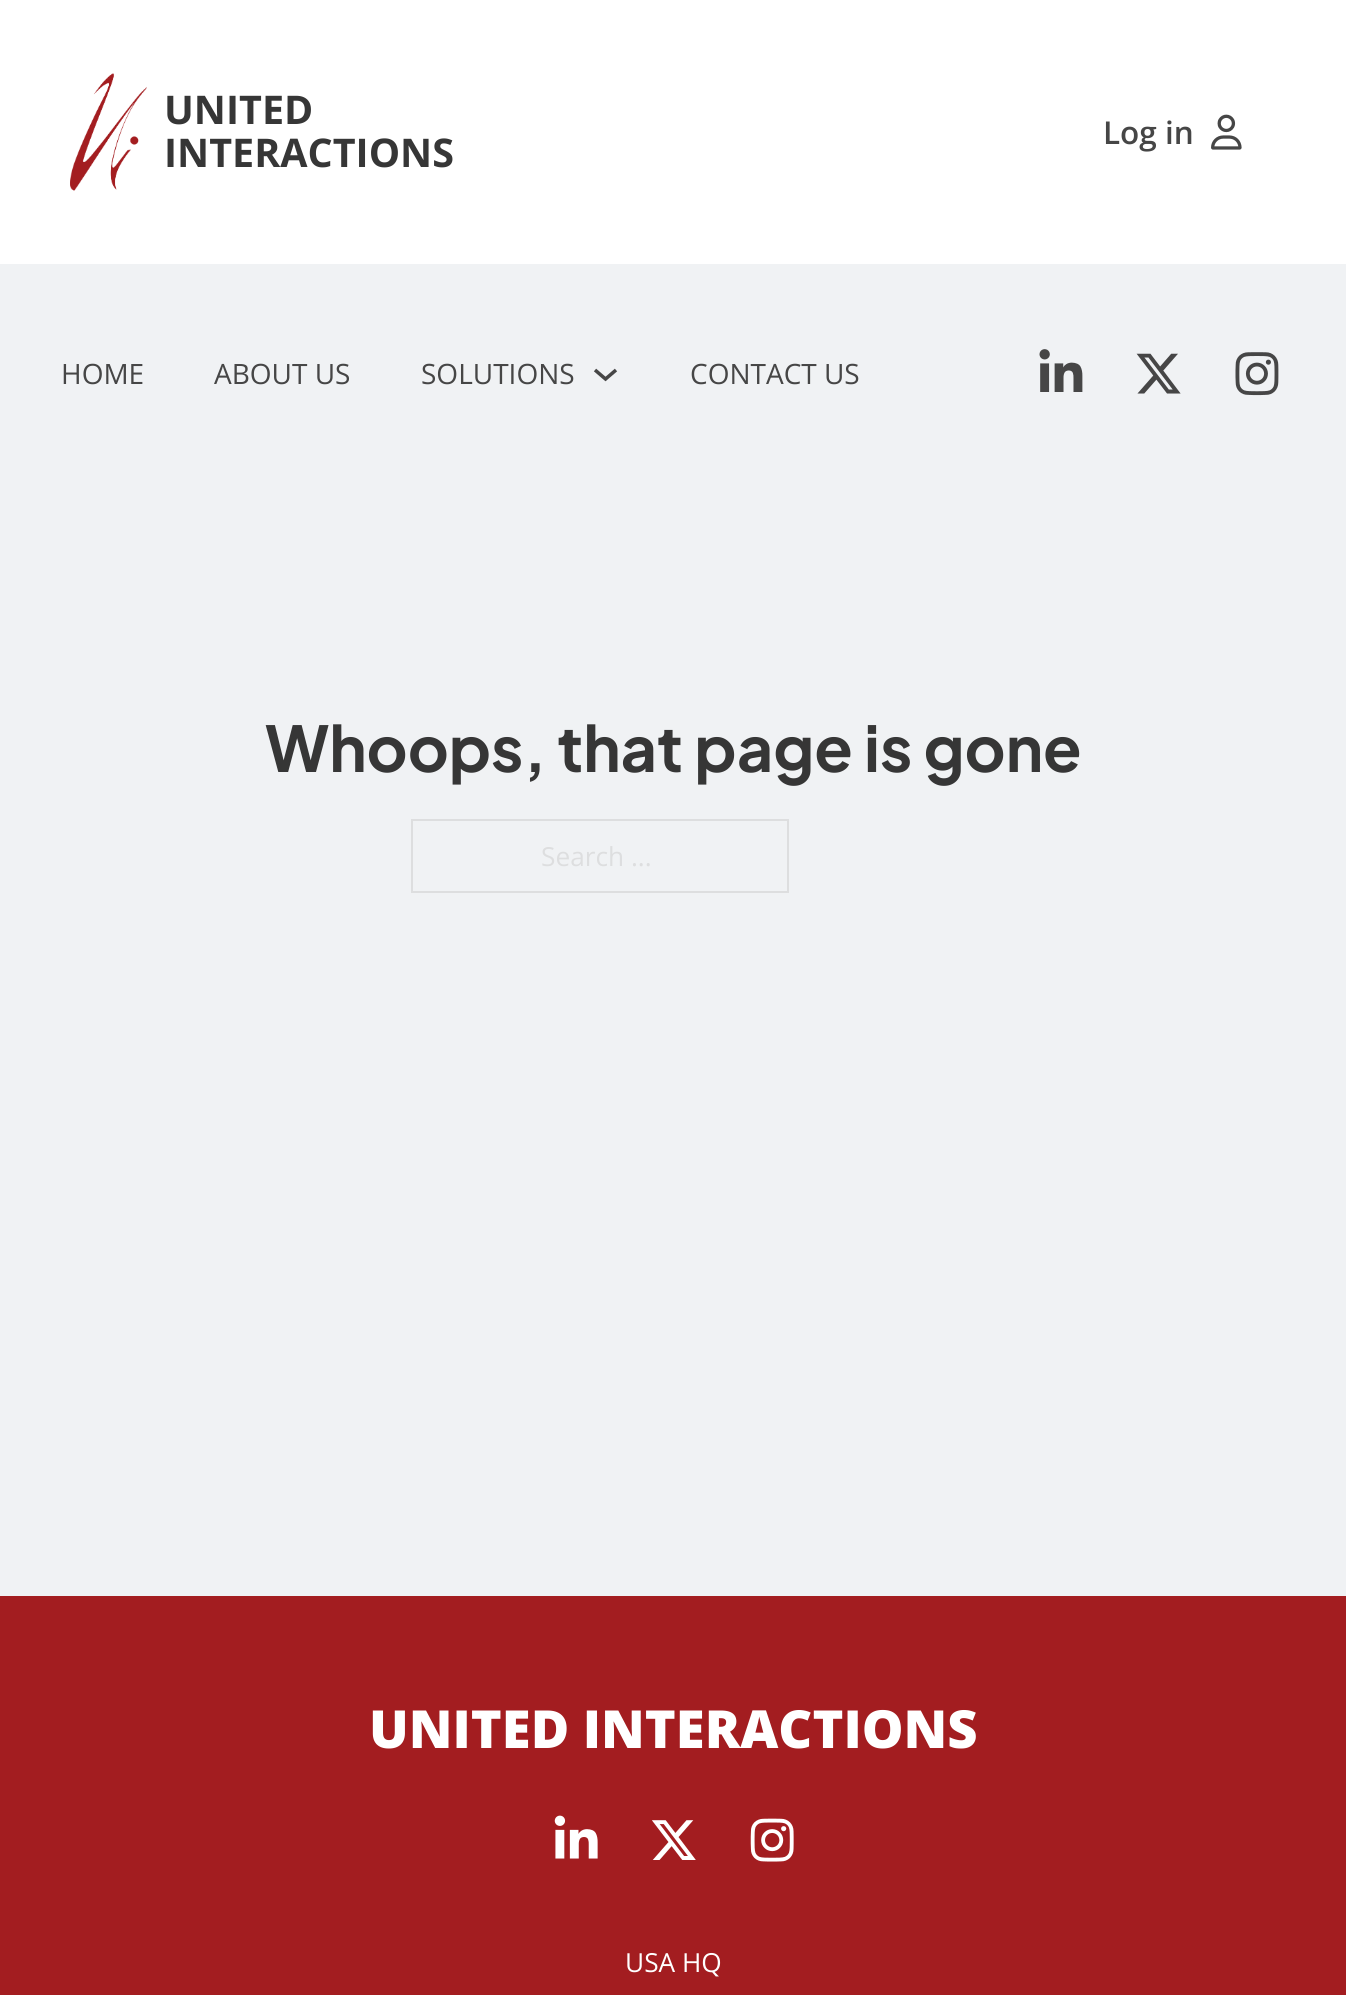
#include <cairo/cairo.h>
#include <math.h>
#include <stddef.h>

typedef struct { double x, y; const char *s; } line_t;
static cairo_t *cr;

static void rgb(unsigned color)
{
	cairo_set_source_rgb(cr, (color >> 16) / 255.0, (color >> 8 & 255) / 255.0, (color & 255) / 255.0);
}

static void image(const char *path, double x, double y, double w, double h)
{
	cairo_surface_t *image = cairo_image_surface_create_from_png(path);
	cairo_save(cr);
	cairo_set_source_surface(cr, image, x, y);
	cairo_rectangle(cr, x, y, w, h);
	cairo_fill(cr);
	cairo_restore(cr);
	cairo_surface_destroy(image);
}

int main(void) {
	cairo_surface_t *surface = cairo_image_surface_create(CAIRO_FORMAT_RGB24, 1346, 1995);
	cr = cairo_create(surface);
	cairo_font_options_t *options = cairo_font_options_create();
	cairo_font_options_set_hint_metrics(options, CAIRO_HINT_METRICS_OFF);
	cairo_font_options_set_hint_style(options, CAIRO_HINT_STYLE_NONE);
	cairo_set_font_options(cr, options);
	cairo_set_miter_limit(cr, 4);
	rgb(0xf0f2f4);
	cairo_paint(cr);
	rgb(0xffffff);
	cairo_rectangle(cr, 0, 0, 1346, 264);
	cairo_fill(cr);
	image("img/1.png", 70, 73, 77, 118);
	image("img/2.png", 1211, 114, 31, 36);
	cairo_new_path(cr);
	cairo_move_to(cr, 595, 370);
	cairo_line_to(cr, 605.5, 379);
	cairo_line_to(cr, 616, 370);
	rgb(0x464646);
	cairo_set_line_width(cr, 3.5);
	cairo_stroke(cr);
	image("img/3.png", 1039, 349, 44, 43);
	image("img/4.png", 1136, 353, 45, 41);
	image("img/5.png", 1235, 352, 44, 44);
	cairo_rectangle(cr, 412, 820, 376, 72);
	rgb(0xdddedf);
	cairo_set_line_width(cr, 2);
	cairo_stroke(cr);
	rgb(0xa31d20);
	cairo_rectangle(cr, 0, 1596, 1346, 399);
	cairo_fill(cr);
	image("img/6.png", 554, 1815, 44, 44);
	image("img/7.png", 652, 1820, 44, 40);
	image("img/8.png", 750, 1818, 44, 44);
	cairo_select_font_face(cr, "Open Sans", CAIRO_FONT_SLANT_NORMAL, CAIRO_FONT_WEIGHT_BOLD);
	cairo_set_font_size(cr, 39.5);
	rgb(0x363636);
	cairo_move_to(cr, 164, 124);
	cairo_show_text(cr, "UNITED");
	cairo_move_to(cr, 164, 167);
	cairo_show_text(cr, "INTERACTIONS");
	cairo_select_font_face(cr, "Open Sans SemiBold", CAIRO_FONT_SLANT_NORMAL, CAIRO_FONT_WEIGHT_NORMAL);
	cairo_set_font_size(cr, 31.5);
	rgb(0x464646);
	cairo_move_to(cr, 1103, 144);
	cairo_show_text(cr, "Log in");
	cairo_select_font_face(cr, "Open Sans", CAIRO_FONT_SLANT_NORMAL, CAIRO_FONT_WEIGHT_NORMAL);
	cairo_set_font_size(cr, 28);
	{
		static const line_t items[] = {
			{61, 384, "HOME"},
			{214, 384, "ABOUT US"},
			{421, 384, "SOLUTIONS"},
			{690, 384, "CONTACT US"},
		};
		for (size_t i = 0; i < sizeof items / sizeof *items; i++) {
			cairo_move_to(cr, items[i].x, items[i].y);
			cairo_show_text(cr, items[i].s);
		}
	}
	cairo_select_font_face(cr, "Plus Jakarta Sans", CAIRO_FONT_SLANT_NORMAL, CAIRO_FONT_WEIGHT_BOLD);
	cairo_set_font_size(cr, 63);
	rgb(0x363636);
	cairo_move_to(cr, 265, 772);
	cairo_show_text(cr, "Whoops, that page is gone");
	cairo_select_font_face(cr, "Open Sans", CAIRO_FONT_SLANT_NORMAL, CAIRO_FONT_WEIGHT_NORMAL);
	cairo_set_font_size(cr, 26.25);
	rgb(0xdddedf);
	cairo_move_to(cr, 541, 866);
	cairo_show_text(cr, "Search ...");
	cairo_select_font_face(cr, "Open Sans ExtraBold", CAIRO_FONT_SLANT_NORMAL, CAIRO_FONT_WEIGHT_NORMAL);
	cairo_set_font_size(cr, 52.5);
	rgb(0xffffff);
	cairo_move_to(cr, 369, 1748);
	cairo_show_text(cr, "UNITED INTERACTIONS");
	cairo_select_font_face(cr, "Open Sans", CAIRO_FONT_SLANT_NORMAL, CAIRO_FONT_WEIGHT_NORMAL);
	cairo_set_font_size(cr, 26.25);
	cairo_move_to(cr, 625, 1972);
	cairo_show_text(cr, "USA HQ");
	cairo_surface_write_to_png(surface, "page.png");
	cairo_font_options_destroy(options);
	cairo_destroy(cr);
	cairo_surface_destroy(surface);
	return 0;
}
